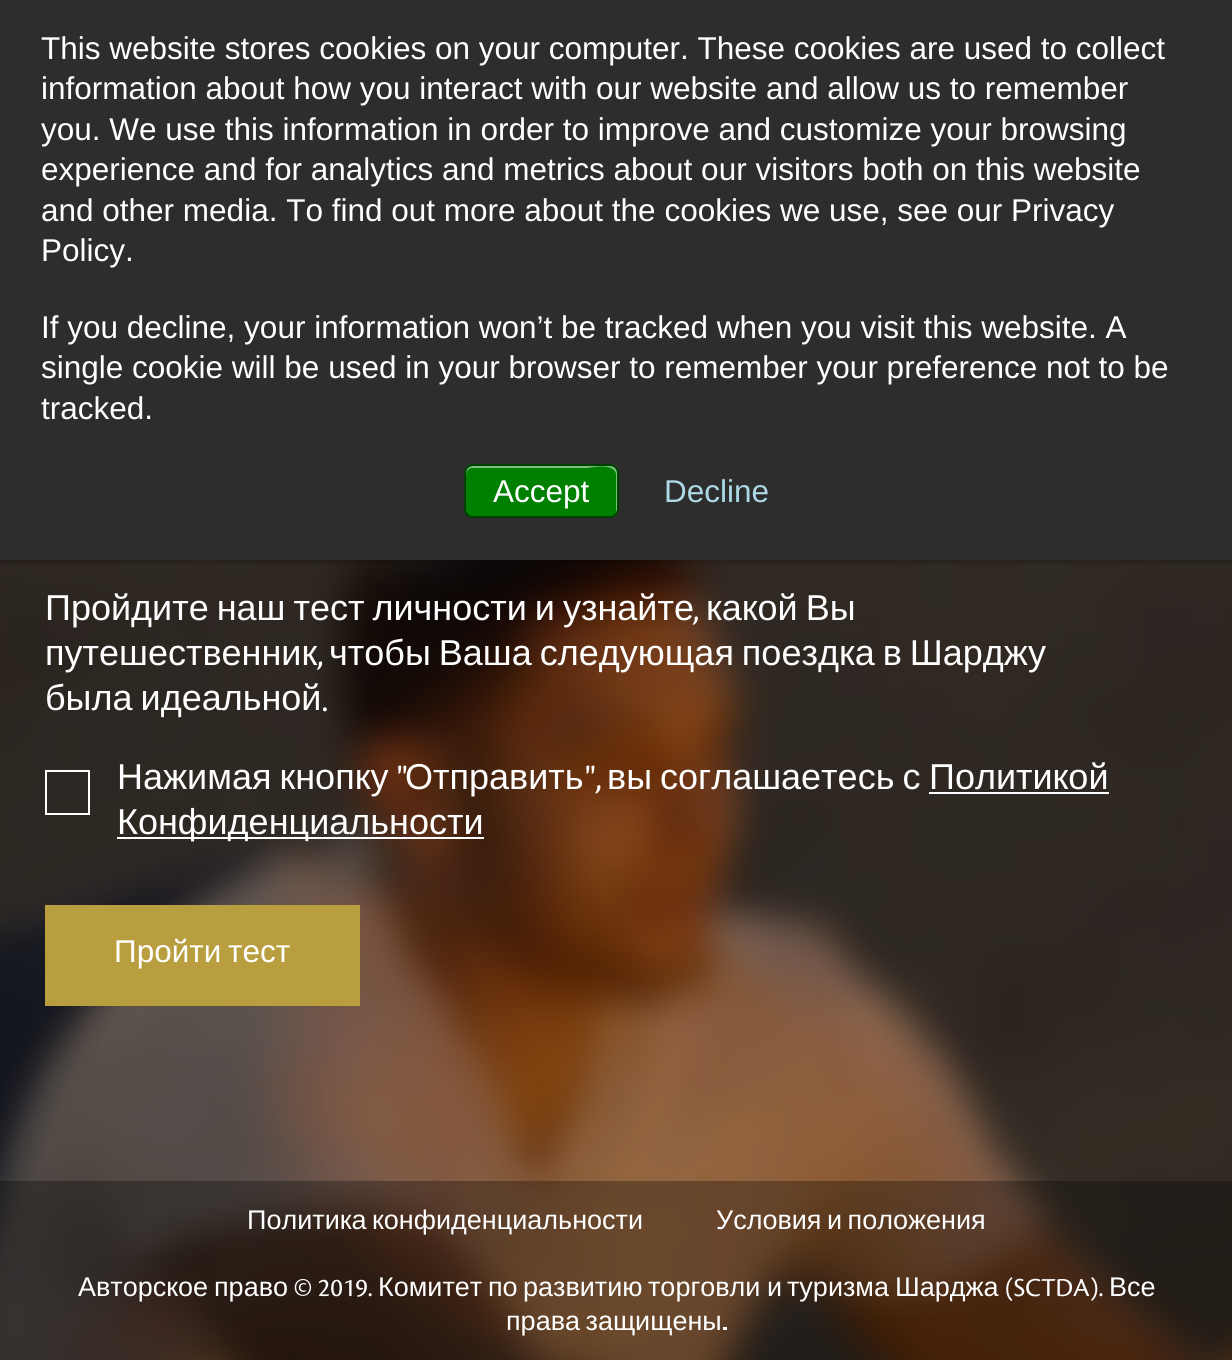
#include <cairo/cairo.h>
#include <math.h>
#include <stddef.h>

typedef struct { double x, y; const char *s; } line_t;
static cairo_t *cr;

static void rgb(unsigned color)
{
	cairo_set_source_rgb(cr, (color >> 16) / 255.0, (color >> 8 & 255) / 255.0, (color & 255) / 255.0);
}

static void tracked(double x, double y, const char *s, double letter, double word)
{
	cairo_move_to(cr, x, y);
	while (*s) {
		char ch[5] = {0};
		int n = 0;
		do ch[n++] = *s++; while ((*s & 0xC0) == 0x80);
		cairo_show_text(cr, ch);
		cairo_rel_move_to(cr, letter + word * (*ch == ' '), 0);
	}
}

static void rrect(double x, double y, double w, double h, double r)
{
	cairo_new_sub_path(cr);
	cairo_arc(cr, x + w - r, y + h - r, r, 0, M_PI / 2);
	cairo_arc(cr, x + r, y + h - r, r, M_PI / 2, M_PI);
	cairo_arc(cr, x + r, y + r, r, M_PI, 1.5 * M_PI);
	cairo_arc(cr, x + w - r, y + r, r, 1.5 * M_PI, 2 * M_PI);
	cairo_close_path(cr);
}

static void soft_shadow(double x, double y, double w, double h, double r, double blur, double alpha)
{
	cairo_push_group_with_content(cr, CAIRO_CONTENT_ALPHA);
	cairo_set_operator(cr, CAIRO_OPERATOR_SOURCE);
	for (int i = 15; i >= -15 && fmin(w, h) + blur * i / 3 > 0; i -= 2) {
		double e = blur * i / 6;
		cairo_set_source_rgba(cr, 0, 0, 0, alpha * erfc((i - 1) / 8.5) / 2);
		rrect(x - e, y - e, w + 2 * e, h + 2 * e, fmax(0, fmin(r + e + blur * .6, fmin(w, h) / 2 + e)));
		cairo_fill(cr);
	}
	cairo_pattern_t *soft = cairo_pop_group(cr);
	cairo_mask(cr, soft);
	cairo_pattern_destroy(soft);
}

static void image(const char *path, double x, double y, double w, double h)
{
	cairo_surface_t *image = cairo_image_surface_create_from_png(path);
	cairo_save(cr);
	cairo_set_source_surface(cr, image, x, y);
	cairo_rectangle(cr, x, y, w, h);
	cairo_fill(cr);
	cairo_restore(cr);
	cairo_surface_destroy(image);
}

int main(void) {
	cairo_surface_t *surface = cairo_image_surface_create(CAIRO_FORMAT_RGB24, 1232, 1360);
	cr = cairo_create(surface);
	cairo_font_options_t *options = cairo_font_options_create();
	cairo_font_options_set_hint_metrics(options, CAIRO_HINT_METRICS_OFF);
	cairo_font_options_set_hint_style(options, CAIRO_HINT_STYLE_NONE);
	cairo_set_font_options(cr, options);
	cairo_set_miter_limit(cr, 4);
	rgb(0xffffff);
	cairo_paint(cr);
	image("img/1.png", 0, 560, 1232, 800);
	rgb(0x000000);
	soft_shadow(0, 2, 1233, 561, 0, 2, 0.2);
	rgb(0x2d2d2d);
	cairo_rectangle(cr, 0, 0, 1232, 560);
	cairo_fill(cr);
	rgb(0x008000);
	rrect(464, 464, 155, 54, 9);
	cairo_fill(cr);
	rgb(0x80c080);
	cairo_new_path(cr);
	cairo_move_to(cr, 472, 468);
	cairo_line_to(cr, 587, 468);
	cairo_curve_to(cr, 589, 468, 614, 462, 616, 474);
	cairo_line_to(cr, 616, 512);
	cairo_curve_to(cr, 617, 511, 617, 509, 617, 508);
	cairo_line_to(cr, 617, 473);
	cairo_curve_to(cr, 617, 469, 614, 466, 610, 466);
	cairo_line_to(cr, 473, 466);
	cairo_curve_to(cr, 469, 466, 466, 469, 466, 473);
	cairo_line_to(cr, 466, 475);
	cairo_curve_to(cr, 466, 471, 469, 468, 472, 468);
	cairo_close_path(cr);
	cairo_fill(cr);
	rrect(465, 465, 153, 52, 8);
	cairo_set_source_rgba(cr, 0, 0, 0, 0.5);
	cairo_stroke(cr);
	image("img/2.png", 692, 616, 6, 9);
	image("img/3.png", 316, 661, 7, 9);
	image("img/4.png", 322, 707, 5, 5);
	cairo_rectangle(cr, 46, 771, 43, 43);
	rgb(0xffffff);
	cairo_stroke(cr);
	image("img/5.png", 398, 765, 9, 9);
	image("img/6.png", 586, 765, 15, 29);
	cairo_rectangle(cr, 929, 792, 180, 2);
	cairo_fill(cr);
	cairo_rectangle(cr, 117, 837, 367, 2);
	cairo_fill(cr);
	rgb(0xb89e3f);
	cairo_rectangle(cr, 45, 905, 315, 101);
	cairo_fill(cr);
	cairo_set_source_rgba(cr, 0, 0, 0, 0.3);
	cairo_rectangle(cr, 0, 1181, 1232, 179);
	cairo_fill(cr);
	image("img/7.png", 294, 1279, 78, 18);
	image("img/8.png", 1006, 1277, 97, 24);
	rgb(0xffffff);
	cairo_rectangle(cr, 723, 1327, 4, 3);
	cairo_fill(cr);
	cairo_select_font_face(cr, "Liberation Sans", CAIRO_FONT_SLANT_NORMAL, CAIRO_FONT_WEIGHT_NORMAL);
	cairo_set_font_size(cr, 31.5);
	{
		static const line_t items[] = {
			{41, 59, "This website stores cookies on your computer. These cookies are used to collect"},
			{41, 99, "information about how you interact with our website and allow us to remember"},
			{41, 140, "you. We use this information in order to improve and customize your browsing"},
			{41, 180, "experience and for analytics and metrics about our visitors both on this website"},
			{41, 221, "and other media. To find out more about the cookies we use, see our Privacy"},
			{41, 261, "Policy."},
			{41, 338, "If you decline, your information won’t be tracked when you visit this website. A"},
			{41, 378, "single cookie will be used in your browser to remember your preference not to be"},
			{41, 419, "tracked."},
			{493, 502, "Accept"},
		};
		for (size_t i = 0; i < sizeof items / sizeof *items; i++) {
			cairo_move_to(cr, items[i].x, items[i].y);
			cairo_show_text(cr, items[i].s);
		}
	}
	rgb(0xadd8e6);
	cairo_move_to(cr, 664, 502);
	cairo_show_text(cr, "Decline");
	cairo_set_font_size(cr, 36);
	rgb(0xffffff);
	tracked(45, 620, "Пройдите наш тест личности и узнайте", 0, -2);
	tracked(706, 620, "какой Вы", 0, -2);
	cairo_move_to(cr, 45, 665);
	cairo_show_text(cr, "путешественник");
	{
		static const line_t items[] = {
			{329, 665, "чтобы Ваша следующая поездка в Шарджу"},
			{45, 710, "была идеальной"},
			{117, 789, "Нажимая кнопку"},
		};
		for (size_t i = 0; i < sizeof items / sizeof *items; i++) {
			tracked(items[i].x, items[i].y, items[i].s, 0, -2);
		}
	}
	cairo_move_to(cr, 405, 789);
	cairo_show_text(cr, "Отправить");
	tracked(607, 789, "вы соглашаетесь с", 0, -2);
	cairo_move_to(cr, 929, 789);
	cairo_show_text(cr, "Политикой");
	cairo_move_to(cr, 117, 834);
	cairo_show_text(cr, "Конфиденциальности");
	cairo_set_font_size(cr, 31.5);
	tracked(114, 962, "Пройти тест", 0, -2);
	cairo_set_font_size(cr, 27);
	tracked(247, 1229, "Политика конфиденциальности", 0, -2);
	tracked(716, 1229, "Условия и положения", 0, -2);
	{
		static const line_t items[] = {
			{78, 1296, "Авторское"},
			{214, 1296, "право"},
			{378, 1296, "Комитет"},
			{488, 1296, "по"},
			{523, 1296, "развитию"},
			{648, 1296, "торговли"},
			{767, 1296, "и"},
			{787, 1296, "туризма"},
			{895, 1296, "Шарджа"},
			{1109, 1296, "Все"},
		};
		for (size_t i = 0; i < sizeof items / sizeof *items; i++) {
			cairo_move_to(cr, items[i].x, items[i].y);
			cairo_show_text(cr, items[i].s);
		}
	}
	tracked(506, 1330, "права защищены", 0, -2);
	cairo_surface_write_to_png(surface, "page.png");
	cairo_font_options_destroy(options);
	cairo_destroy(cr);
	cairo_surface_destroy(surface);
	return 0;
}
